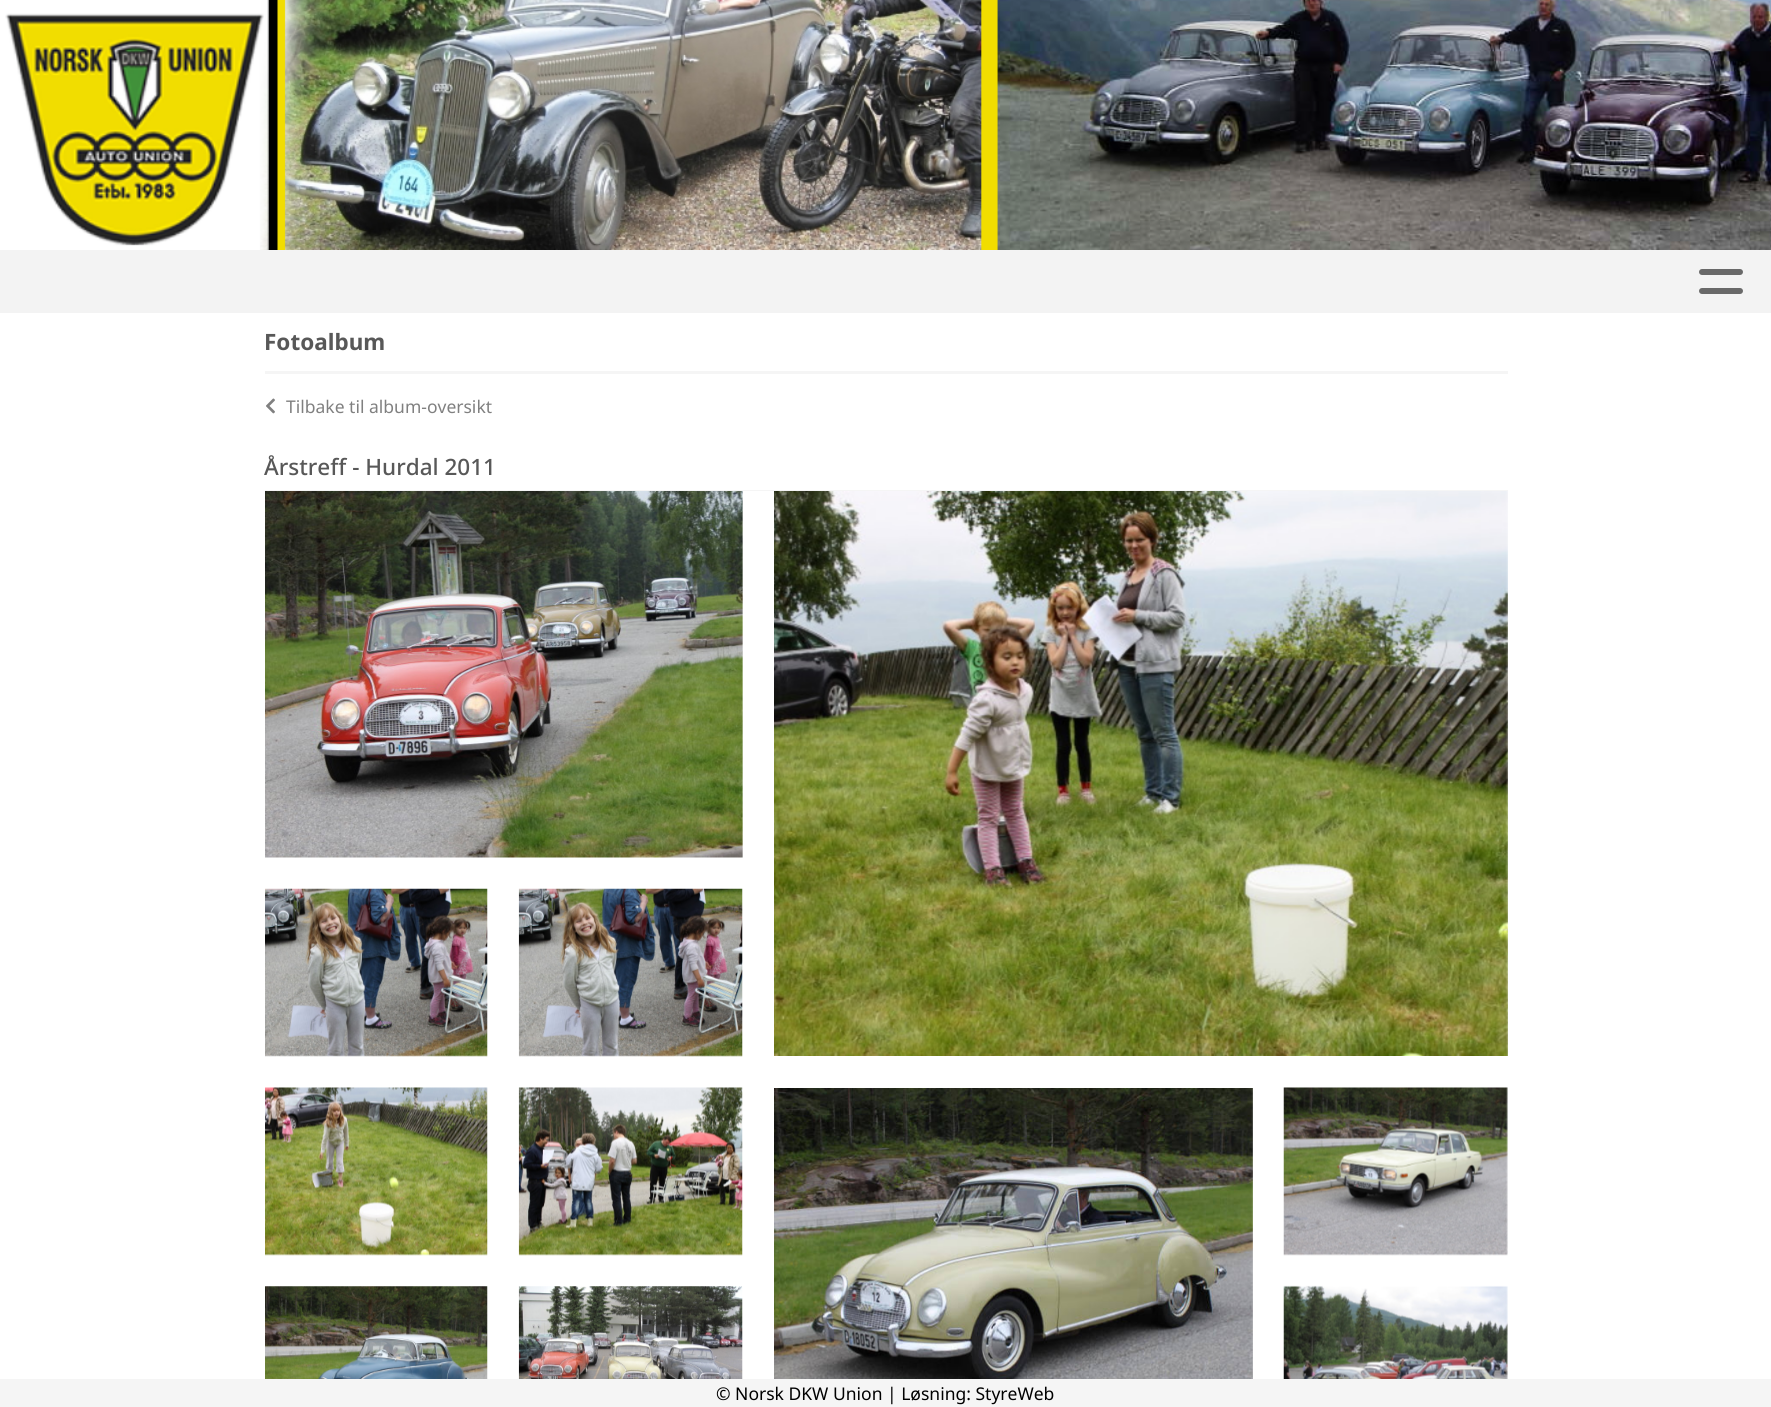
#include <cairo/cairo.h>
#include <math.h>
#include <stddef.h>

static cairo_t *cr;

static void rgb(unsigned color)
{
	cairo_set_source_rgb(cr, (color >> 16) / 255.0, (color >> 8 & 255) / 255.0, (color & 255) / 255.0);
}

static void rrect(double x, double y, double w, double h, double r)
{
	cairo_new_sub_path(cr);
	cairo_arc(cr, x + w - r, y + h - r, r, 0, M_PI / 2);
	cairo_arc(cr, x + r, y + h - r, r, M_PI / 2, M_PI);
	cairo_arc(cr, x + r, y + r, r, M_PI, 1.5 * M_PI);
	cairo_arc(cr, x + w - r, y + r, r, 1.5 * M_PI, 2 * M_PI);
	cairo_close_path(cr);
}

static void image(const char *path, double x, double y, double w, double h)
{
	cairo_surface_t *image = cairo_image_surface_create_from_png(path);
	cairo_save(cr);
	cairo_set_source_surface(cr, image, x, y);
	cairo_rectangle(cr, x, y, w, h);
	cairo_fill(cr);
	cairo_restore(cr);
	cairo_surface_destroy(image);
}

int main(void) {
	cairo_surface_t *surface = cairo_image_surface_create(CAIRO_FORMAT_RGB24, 1771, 1407);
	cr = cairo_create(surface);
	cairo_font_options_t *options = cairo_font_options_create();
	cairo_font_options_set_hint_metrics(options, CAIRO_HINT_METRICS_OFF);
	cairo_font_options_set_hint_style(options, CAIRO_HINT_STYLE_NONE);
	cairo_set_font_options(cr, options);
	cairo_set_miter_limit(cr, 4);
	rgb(0xffffff);
	cairo_paint(cr);
	image("img/1.png", 5, 0, 1766, 250);
	rgb(0xf3f3f3);
	cairo_rectangle(cr, 0, 250, 1771, 63);
	cairo_fill(cr);
	rgb(0x696969);
	rrect(1699, 269, 44, 6, 3);
	cairo_fill(cr);
	rrect(1699, 288, 44, 6, 3);
	cairo_fill(cr);
	rgb(0xf5f5f5);
	cairo_rectangle(cr, 265, 371, 1243, 3);
	cairo_fill(cr);
	image("img/2.png", 266, 398, 9, 16);
	cairo_rectangle(cr, 265, 490, 1243, 1);
	cairo_fill(cr);
	image("img/3.png", 265, 491, 478, 367);
	image("img/4.png", 774, 491, 734, 565);
	image("img/5.png", 265, 888, 223, 169);
	image("img/6.png", 518, 888, 225, 169);
	image("img/7.png", 265, 1087, 223, 169);
	image("img/8.png", 518, 1087, 225, 169);
	image("img/9.png", 774, 1088, 479, 291);
	image("img/10.png", 1283, 1087, 225, 169);
	image("img/11.png", 265, 1286, 223, 93);
	image("img/12.png", 518, 1286, 225, 93);
	image("img/13.png", 1283, 1285, 225, 94);
	cairo_rectangle(cr, 0, 1379, 1771, 28);
	cairo_fill(cr);
	cairo_select_font_face(cr, "Noto Sans", CAIRO_FONT_SLANT_NORMAL, CAIRO_FONT_WEIGHT_BOLD);
	cairo_set_font_size(cr, 22.5);
	rgb(0x585858);
	cairo_move_to(cr, 264, 350);
	cairo_show_text(cr, "Fotoalbum");
	cairo_select_font_face(cr, "Noto Sans", CAIRO_FONT_SLANT_NORMAL, CAIRO_FONT_WEIGHT_NORMAL);
	cairo_set_font_size(cr, 17.5);
	rgb(0x808080);
	cairo_move_to(cr, 286, 413);
	cairo_show_text(cr, "Tilbake til album-oversikt");
	cairo_select_font_face(cr, "Noto Sans Medium", CAIRO_FONT_SLANT_NORMAL, CAIRO_FONT_WEIGHT_NORMAL);
	cairo_set_font_size(cr, 22.5);
	rgb(0x585858);
	cairo_move_to(cr, 264, 475);
	cairo_show_text(cr, "Årstreff - Hurdal 2011");
	cairo_select_font_face(cr, "Noto Sans", CAIRO_FONT_SLANT_NORMAL, CAIRO_FONT_WEIGHT_NORMAL);
	cairo_set_font_size(cr, 17.5);
	rgb(0x000000);
	cairo_move_to(cr, 716, 1400);
	cairo_show_text(cr, "© Norsk DKW Union | Løsning: StyreWeb");
	cairo_surface_write_to_png(surface, "page.png");
	cairo_font_options_destroy(options);
	cairo_destroy(cr);
	cairo_surface_destroy(surface);
	return 0;
}
